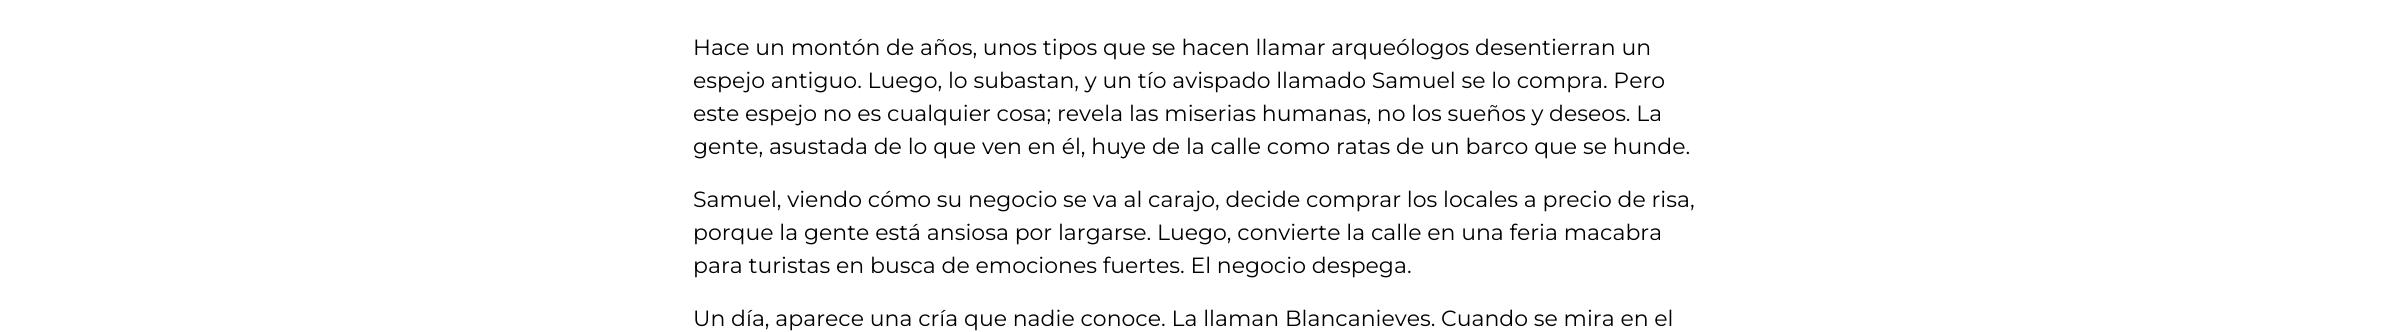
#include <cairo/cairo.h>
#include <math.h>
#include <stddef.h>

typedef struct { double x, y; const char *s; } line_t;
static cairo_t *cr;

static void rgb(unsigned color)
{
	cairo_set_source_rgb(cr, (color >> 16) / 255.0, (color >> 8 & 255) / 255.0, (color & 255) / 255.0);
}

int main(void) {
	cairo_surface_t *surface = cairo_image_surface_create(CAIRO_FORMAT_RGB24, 2395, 332);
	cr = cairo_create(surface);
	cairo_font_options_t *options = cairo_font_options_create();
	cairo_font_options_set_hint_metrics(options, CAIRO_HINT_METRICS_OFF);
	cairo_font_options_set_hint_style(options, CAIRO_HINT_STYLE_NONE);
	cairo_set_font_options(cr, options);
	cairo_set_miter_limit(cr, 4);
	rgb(0xffffff);
	cairo_paint(cr);
	cairo_select_font_face(cr, "Montserrat Thin", CAIRO_FONT_SLANT_NORMAL, CAIRO_FONT_WEIGHT_NORMAL);
	cairo_set_font_size(cr, 22);
	rgb(0x000000);
	{
		static const line_t items[] = {
			{693, 55, "Hace un montón de años, unos tipos que se hacen llamar arqueólogos desentierran un"},
			{693, 88, "espejo antiguo. Luego, lo subastan, y un tío avispado llamado Samuel se lo compra. Pero"},
			{693, 121, "este espejo no es cualquier cosa; revela las miserias humanas, no los sueños y deseos. La"},
			{693, 154, "gente, asustada de lo que ven en él, huye de la calle como ratas de un barco que se hunde."},
			{693, 207, "Samuel, viendo cómo su negocio se va al carajo, decide comprar los locales a precio de risa,"},
			{693, 240, "porque la gente está ansiosa por largarse. Luego, convierte la calle en una feria macabra"},
			{693, 273, "para turistas en busca de emociones fuertes. El negocio despega."},
			{693, 326, "Un día, aparece una cría que nadie conoce. La llaman Blancanieves. Cuando se mira en el"},
		};
		for (size_t i = 0; i < sizeof items / sizeof *items; i++) {
			cairo_move_to(cr, items[i].x, items[i].y);
			cairo_show_text(cr, items[i].s);
		}
	}
	cairo_surface_write_to_png(surface, "page.png");
	cairo_font_options_destroy(options);
	cairo_destroy(cr);
	cairo_surface_destroy(surface);
	return 0;
}
